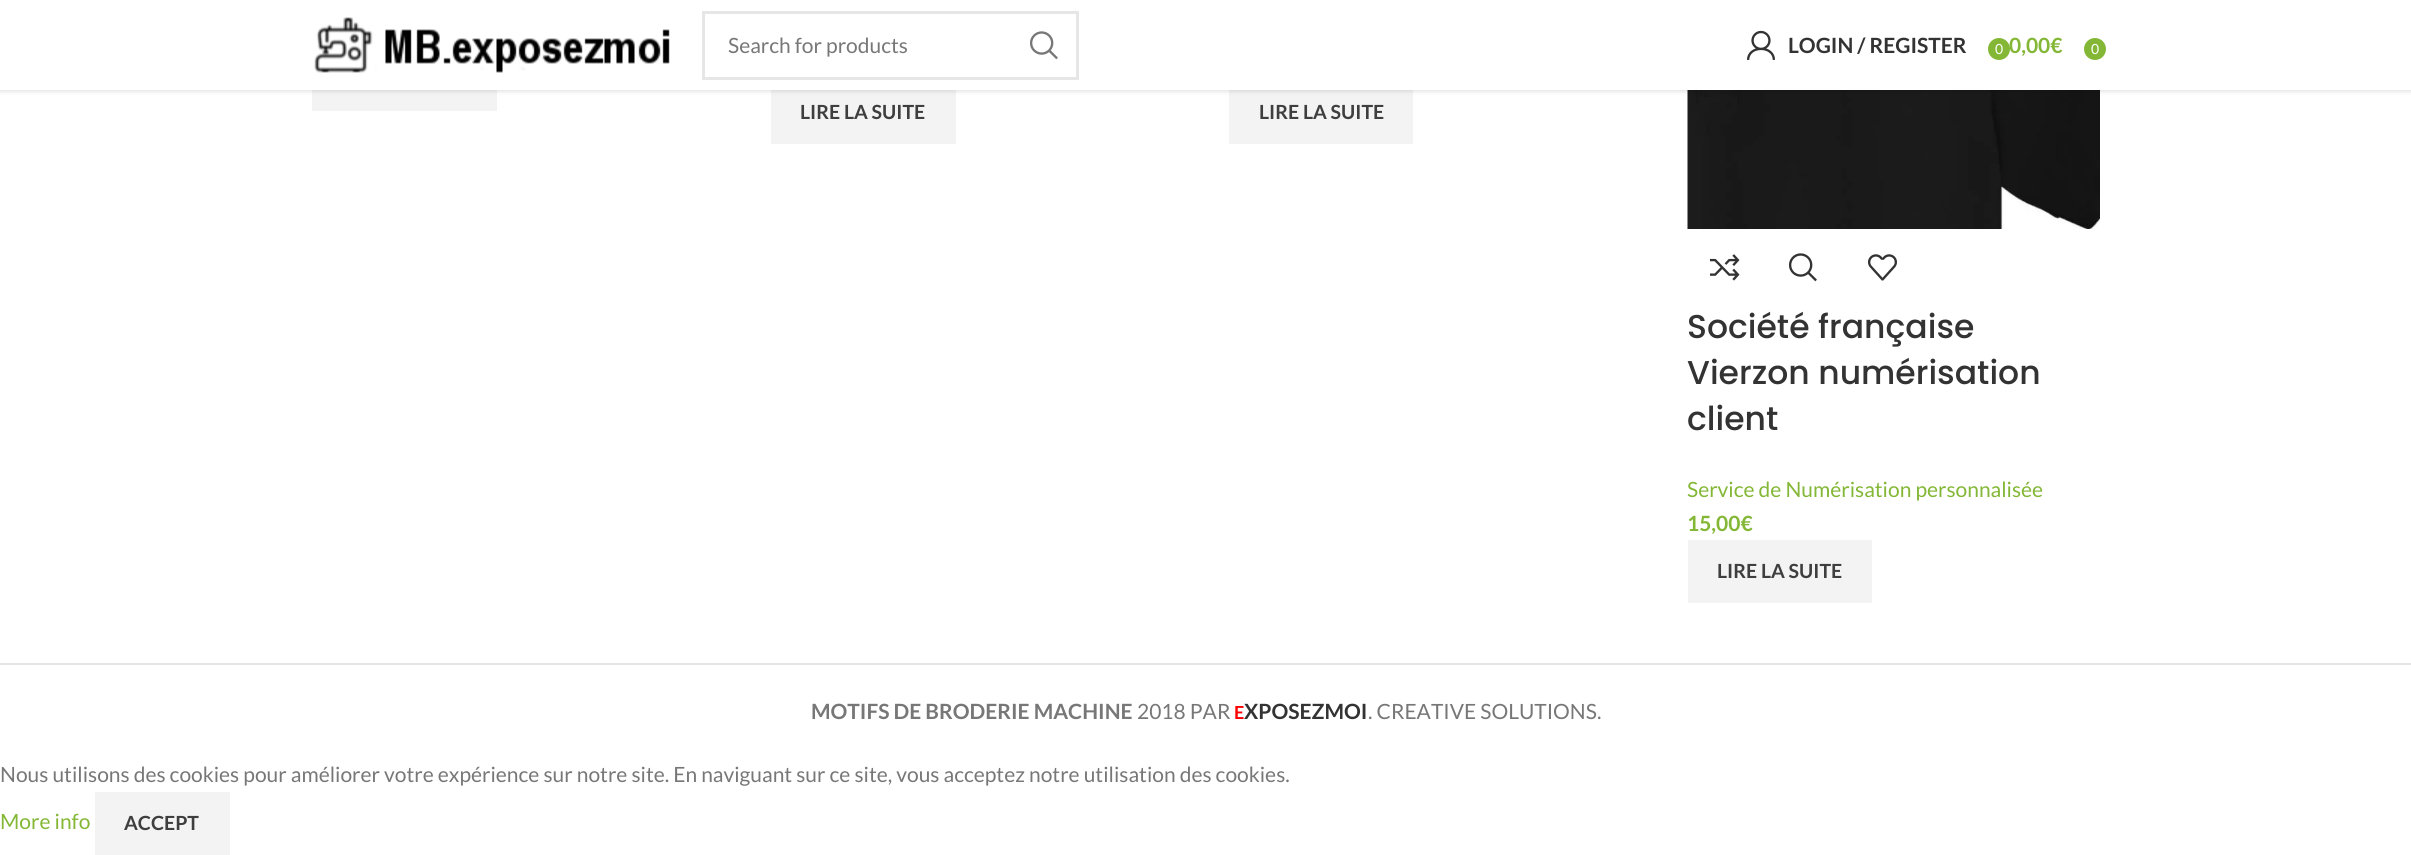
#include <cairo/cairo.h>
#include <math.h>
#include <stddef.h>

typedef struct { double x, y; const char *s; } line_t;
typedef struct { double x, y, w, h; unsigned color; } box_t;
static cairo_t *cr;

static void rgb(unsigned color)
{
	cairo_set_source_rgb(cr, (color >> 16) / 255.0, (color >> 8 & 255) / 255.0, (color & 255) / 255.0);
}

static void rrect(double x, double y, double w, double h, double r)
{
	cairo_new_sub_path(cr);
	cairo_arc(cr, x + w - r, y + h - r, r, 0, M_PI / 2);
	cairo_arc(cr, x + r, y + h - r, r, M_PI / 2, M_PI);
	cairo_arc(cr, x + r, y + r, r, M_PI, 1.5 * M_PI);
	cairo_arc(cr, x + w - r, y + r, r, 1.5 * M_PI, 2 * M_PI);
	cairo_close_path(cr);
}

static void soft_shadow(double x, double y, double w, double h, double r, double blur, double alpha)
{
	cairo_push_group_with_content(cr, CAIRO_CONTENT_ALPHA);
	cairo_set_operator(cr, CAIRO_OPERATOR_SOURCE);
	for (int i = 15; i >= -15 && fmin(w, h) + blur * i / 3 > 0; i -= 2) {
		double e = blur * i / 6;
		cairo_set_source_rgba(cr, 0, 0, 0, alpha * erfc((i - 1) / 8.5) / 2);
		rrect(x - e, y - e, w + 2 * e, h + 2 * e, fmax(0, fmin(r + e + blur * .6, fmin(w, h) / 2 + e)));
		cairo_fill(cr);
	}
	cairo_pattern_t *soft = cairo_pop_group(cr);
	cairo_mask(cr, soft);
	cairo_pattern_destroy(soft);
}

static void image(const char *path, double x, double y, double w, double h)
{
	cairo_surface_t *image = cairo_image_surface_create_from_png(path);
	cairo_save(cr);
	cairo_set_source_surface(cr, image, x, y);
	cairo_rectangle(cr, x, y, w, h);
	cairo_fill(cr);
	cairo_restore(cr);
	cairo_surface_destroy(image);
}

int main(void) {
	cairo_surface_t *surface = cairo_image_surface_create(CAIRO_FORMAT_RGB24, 2411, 855);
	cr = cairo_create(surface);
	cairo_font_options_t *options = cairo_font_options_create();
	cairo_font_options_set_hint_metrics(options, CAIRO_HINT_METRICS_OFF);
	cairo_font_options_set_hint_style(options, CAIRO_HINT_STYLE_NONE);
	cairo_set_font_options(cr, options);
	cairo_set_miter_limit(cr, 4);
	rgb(0xffffff);
	cairo_paint(cr);
	{
		static const box_t items[] = {
			{312, 90, 185, 21, 0xf3f3f3},
			{771, 90, 185, 54, 0xf3f3f3},
			{1229, 90, 184, 54, 0xf3f3f3},
		};
		for (size_t i = 0; i < sizeof items / sizeof *items; i++) {
			rgb(items[i].color);
			cairo_rectangle(cr, items[i].x, items[i].y, items[i].w, items[i].h);
			cairo_fill(cr);
		}
	}
	image("img/4.png", 1687, 90, 413, 139);
	rgb(0x000000);
	soft_shadow(0, 2, 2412, 90, 0, 2, 0.1);
	rgb(0xffffff);
	cairo_rectangle(cr, 0, 0, 2411, 90);
	cairo_fill(cr);
	image("img/1.png", 314, 17, 356, 56);
	cairo_rectangle(cr, 703.5, 12.5, 374, 66);
	rgb(0xe6e6e6);
	cairo_set_line_width(cr, 3);
	cairo_stroke(cr);
	image("img/2.png", 1030, 31, 28, 29);
	image("img/3.png", 1747, 30, 28, 30);
	rgb(0x83b735);
	cairo_arc(cr, 1999, 49, 11, 0, 2 * M_PI);
	cairo_fill(cr);
	cairo_arc(cr, 2095, 49, 11, 0, 2 * M_PI);
	cairo_fill(cr);
	image("img/5.png", 1710, 254, 30, 27);
	image("img/6.png", 1789, 253, 28, 29);
	image("img/7.png", 1868, 254, 29, 27);
	{
		static const box_t items[] = {
			{1688, 540, 184, 63, 0xf3f3f3},
			{0, 663, 2411, 2, 0xe4e4e4},
			{95, 792, 135, 63, 0xf3f3f3},
		};
		for (size_t i = 0; i < sizeof items / sizeof *items; i++) {
			rgb(items[i].color);
			cairo_rectangle(cr, items[i].x, items[i].y, items[i].w, items[i].h);
			cairo_fill(cr);
		}
	}
	cairo_select_font_face(cr, "Lato", CAIRO_FONT_SLANT_NORMAL, CAIRO_FONT_WEIGHT_NORMAL);
	cairo_set_font_size(cr, 21);
	rgb(0x777777);
	cairo_move_to(cr, 728, 53);
	cairo_show_text(cr, "Search for products");
	cairo_select_font_face(cr, "Lato", CAIRO_FONT_SLANT_NORMAL, CAIRO_FONT_WEIGHT_BOLD);
	rgb(0x333333);
	cairo_move_to(cr, 1788, 53);
	cairo_show_text(cr, "LOGIN / REGISTER");
	cairo_select_font_face(cr, "Lato", CAIRO_FONT_SLANT_NORMAL, CAIRO_FONT_WEIGHT_NORMAL);
	cairo_set_font_size(cr, 14);
	rgb(0xffffff);
	cairo_move_to(cr, 1995, 54);
	cairo_show_text(cr, "0");
	cairo_select_font_face(cr, "Lato", CAIRO_FONT_SLANT_NORMAL, CAIRO_FONT_WEIGHT_BOLD);
	cairo_set_font_size(cr, 21);
	rgb(0x83b735);
	cairo_move_to(cr, 2009, 53);
	cairo_show_text(cr, "0,00€");
	cairo_select_font_face(cr, "Lato", CAIRO_FONT_SLANT_NORMAL, CAIRO_FONT_WEIGHT_NORMAL);
	cairo_set_font_size(cr, 14);
	rgb(0xffffff);
	cairo_move_to(cr, 2091, 54);
	cairo_show_text(cr, "0");
	cairo_select_font_face(cr, "Lato", CAIRO_FONT_SLANT_NORMAL, CAIRO_FONT_WEIGHT_BOLD);
	cairo_set_font_size(cr, 19.5);
	rgb(0x3e3e3e);
	cairo_move_to(cr, 800, 119);
	cairo_show_text(cr, "LIRE LA SUITE");
	cairo_move_to(cr, 1259, 119);
	cairo_show_text(cr, "LIRE LA SUITE");
	cairo_select_font_face(cr, "Poppins Medium", CAIRO_FONT_SLANT_NORMAL, CAIRO_FONT_WEIGHT_NORMAL);
	cairo_set_font_size(cr, 33);
	rgb(0x333333);
	{
		static const line_t items[] = {
			{1687, 338, "Société française"},
			{1687, 384, "Vierzon numérisation"},
			{1687, 430, "client"},
		};
		for (size_t i = 0; i < sizeof items / sizeof *items; i++) {
			cairo_move_to(cr, items[i].x, items[i].y);
			cairo_show_text(cr, items[i].s);
		}
	}
	cairo_select_font_face(cr, "Lato", CAIRO_FONT_SLANT_NORMAL, CAIRO_FONT_WEIGHT_NORMAL);
	cairo_set_font_size(cr, 21);
	rgb(0x83b735);
	cairo_move_to(cr, 1687, 497);
	cairo_show_text(cr, "Service de Numérisation personnalisée");
	cairo_select_font_face(cr, "Lato", CAIRO_FONT_SLANT_NORMAL, CAIRO_FONT_WEIGHT_BOLD);
	cairo_move_to(cr, 1687, 531);
	cairo_show_text(cr, "15,00€");
	cairo_set_font_size(cr, 19.5);
	rgb(0x3e3e3e);
	cairo_move_to(cr, 1717, 578);
	cairo_show_text(cr, "LIRE LA SUITE");
	cairo_set_font_size(cr, 21);
	rgb(0x777777);
	cairo_move_to(cr, 811, 719);
	cairo_show_text(cr, "MOTIFS DE BRODERIE MACHINE");
	cairo_select_font_face(cr, "Lato", CAIRO_FONT_SLANT_NORMAL, CAIRO_FONT_WEIGHT_NORMAL);
	cairo_move_to(cr, 1137, 719);
	cairo_show_text(cr, "2018 PAR");
	cairo_select_font_face(cr, "Lato", CAIRO_FONT_SLANT_NORMAL, CAIRO_FONT_WEIGHT_BOLD);
	cairo_set_font_size(cr, 18);
	rgb(0xff0000);
	cairo_move_to(cr, 1234, 719);
	cairo_show_text(cr, "E");
	cairo_set_font_size(cr, 21);
	rgb(0x333333);
	cairo_move_to(cr, 1244, 719);
	cairo_show_text(cr, "XPOSEZMOI");
	cairo_select_font_face(cr, "Lato", CAIRO_FONT_SLANT_NORMAL, CAIRO_FONT_WEIGHT_NORMAL);
	rgb(0x777777);
	cairo_move_to(cr, 1368, 719);
	cairo_show_text(cr, ". CREATIVE SOLUTIONS.");
	cairo_move_to(cr, 0, 782);
	cairo_show_text(cr, "Nous utilisons des cookies pour améliorer votre expérience sur notre site. En naviguant sur ce site, vous acceptez notre utilisation des cookies.");
	rgb(0x83b735);
	cairo_move_to(cr, 0, 829);
	cairo_show_text(cr, "More info");
	cairo_select_font_face(cr, "Lato", CAIRO_FONT_SLANT_NORMAL, CAIRO_FONT_WEIGHT_BOLD);
	cairo_set_font_size(cr, 19.5);
	rgb(0x3e3e3e);
	cairo_move_to(cr, 124, 830);
	cairo_show_text(cr, "ACCEPT");
	cairo_surface_write_to_png(surface, "page.png");
	cairo_font_options_destroy(options);
	cairo_destroy(cr);
	cairo_surface_destroy(surface);
	return 0;
}
